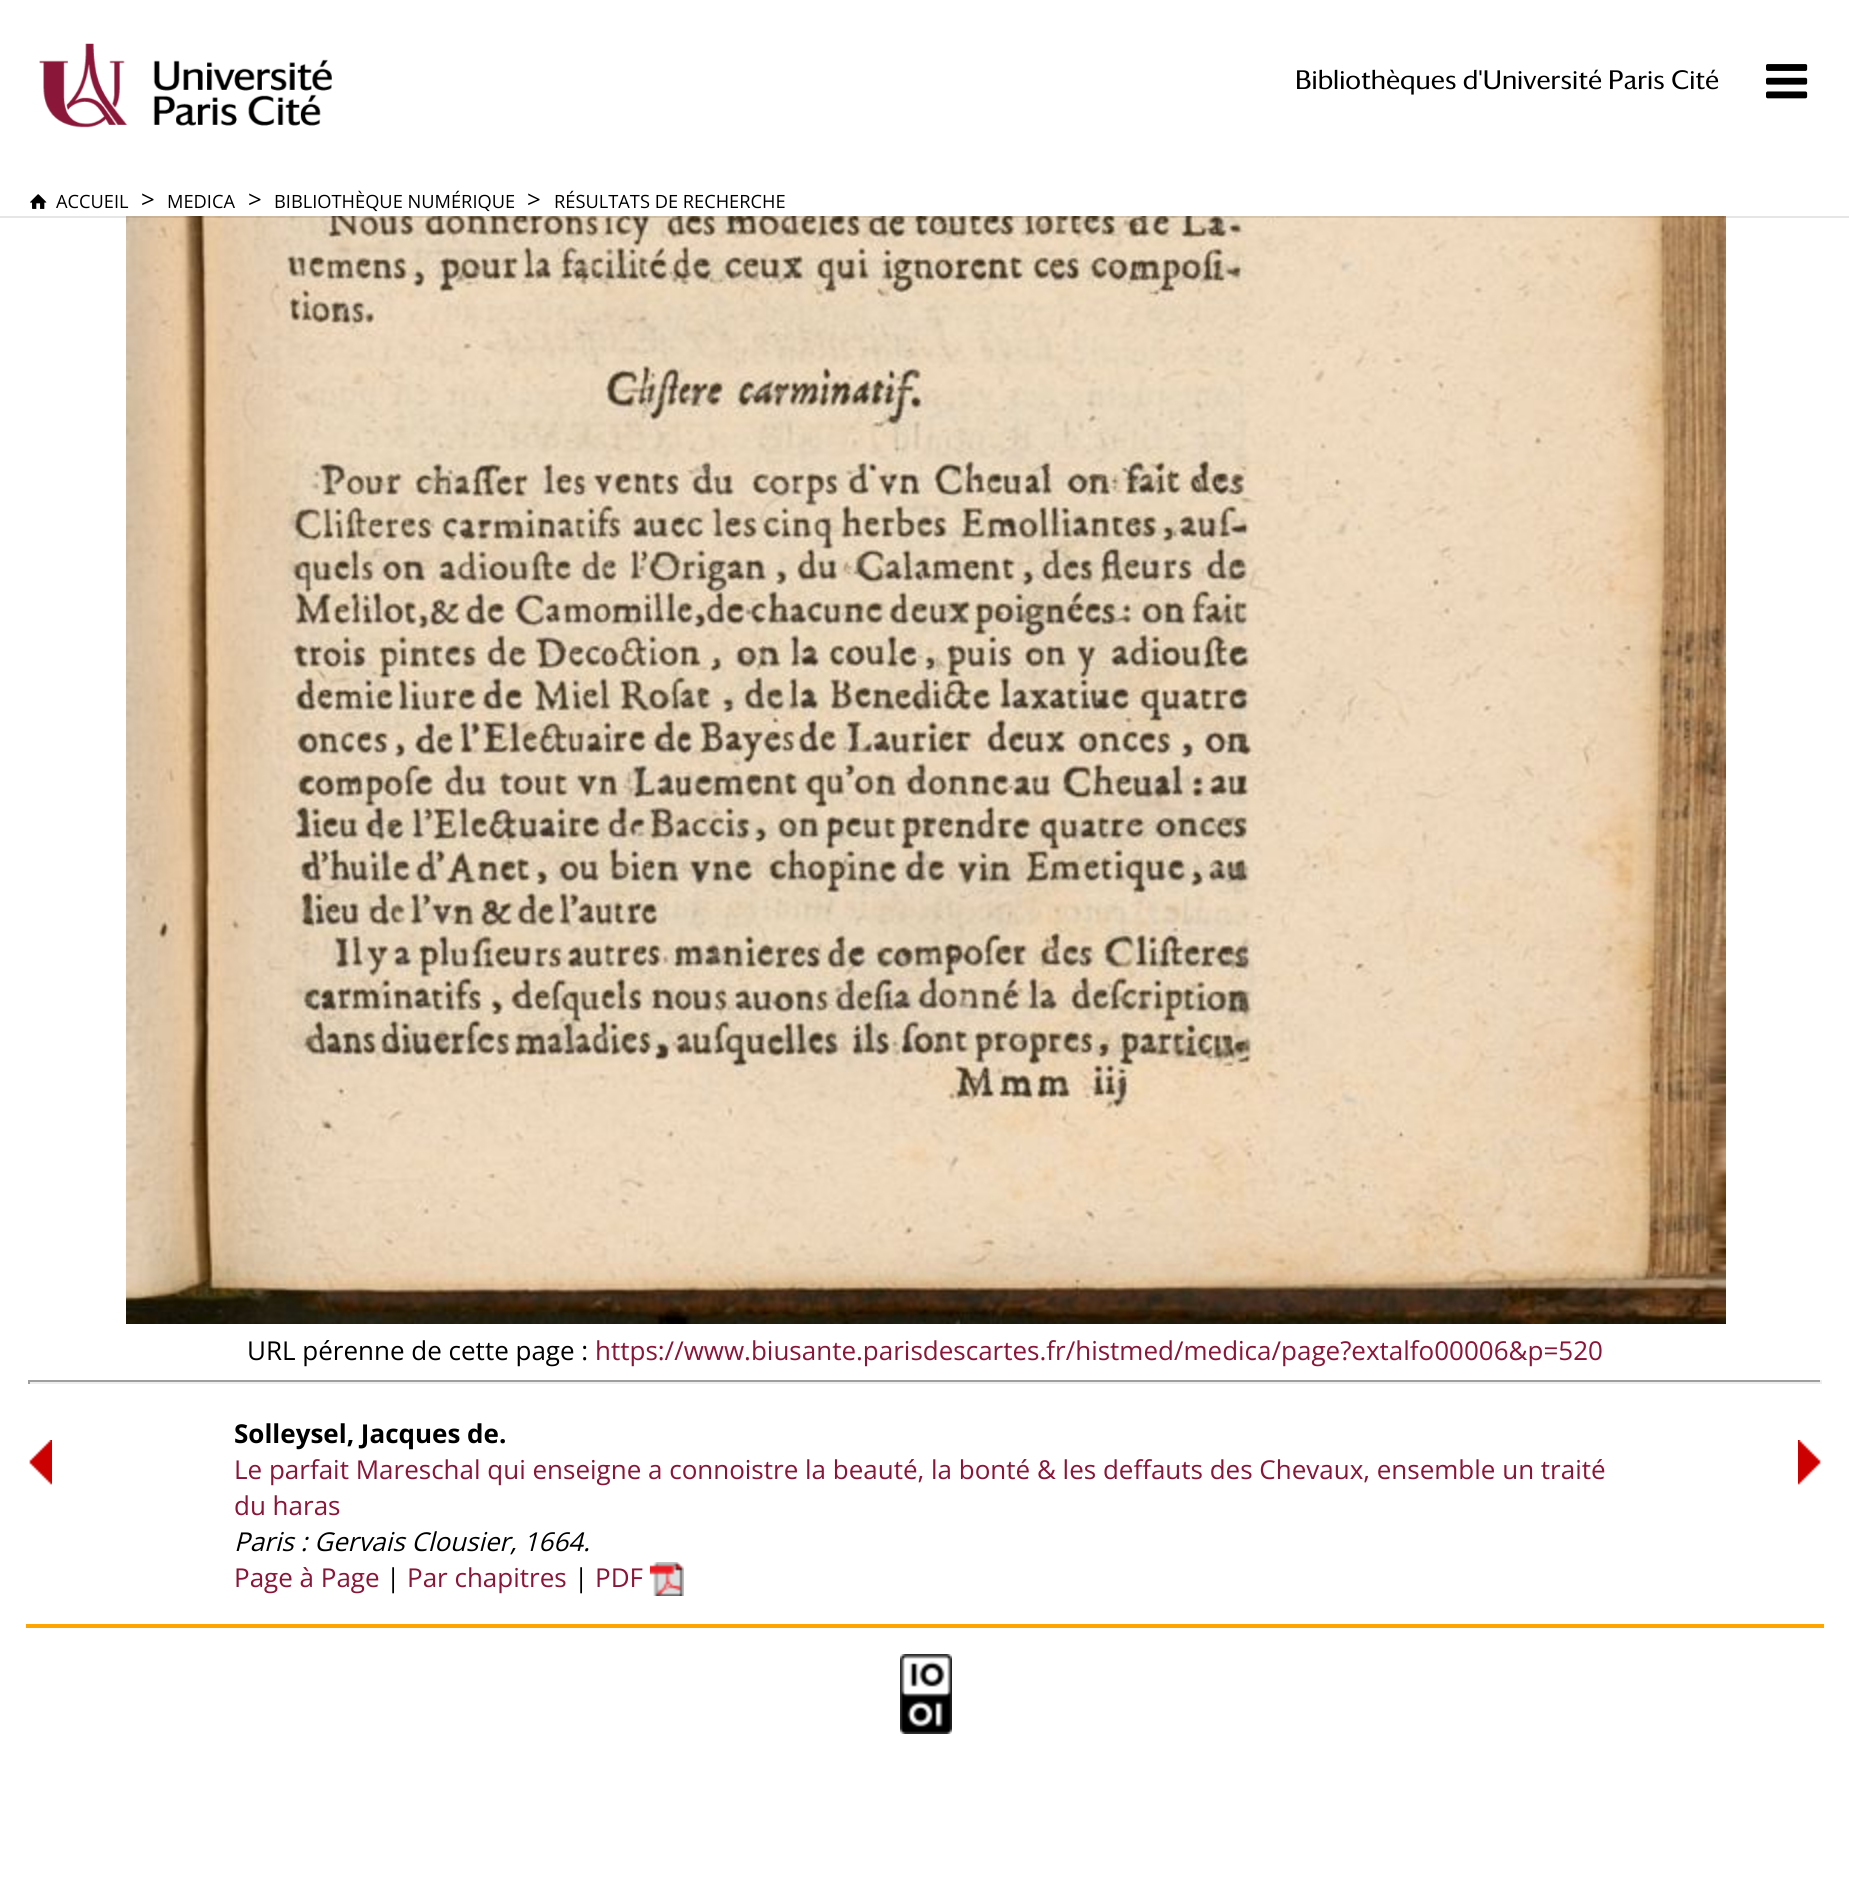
#include <cairo/cairo.h>
#include <math.h>
#include <stddef.h>

typedef struct { double x, y, w, h; unsigned color; } box_t;
static cairo_t *cr;

static void rgb(unsigned color)
{
	cairo_set_source_rgb(cr, (color >> 16) / 255.0, (color >> 8 & 255) / 255.0, (color & 255) / 255.0);
}

static void image(const char *path, double x, double y, double w, double h)
{
	cairo_surface_t *image = cairo_image_surface_create_from_png(path);
	cairo_save(cr);
	cairo_set_source_surface(cr, image, x, y);
	cairo_rectangle(cr, x, y, w, h);
	cairo_fill(cr);
	cairo_restore(cr);
	cairo_surface_destroy(image);
}

int main(void) {
	cairo_surface_t *surface = cairo_image_surface_create(CAIRO_FORMAT_RGB24, 1849, 1881);
	cr = cairo_create(surface);
	cairo_font_options_t *options = cairo_font_options_create();
	cairo_font_options_set_hint_metrics(options, CAIRO_HINT_METRICS_OFF);
	cairo_font_options_set_hint_style(options, CAIRO_HINT_STYLE_NONE);
	cairo_set_font_options(cr, options);
	cairo_set_miter_limit(cr, 4);
	rgb(0xffffff);
	cairo_paint(cr);
	image("img/4.png", 126, 216, 1600, 1108);
	cairo_set_source_rgba(cr, 0, 0, 0, 0.1);
	cairo_rectangle(cr, 0, 216, 1849, 2);
	cairo_fill(cr);
	image("img/1.png", 39, 43, 293, 85);
	image("img/2.png", 1766, 64, 42, 35);
	image("img/3.png", 30, 194, 17, 15);
	{
		static const box_t items[] = {
			{28, 1380, 1794, 2, 0x9f9f9f},
			{1820, 1380, 2, 4, 0xeeeeee},
			{28, 1382, 1794, 2, 0xeeeeee},
			{28, 1380, 2, 4, 0x9f9f9f},
		};
		for (size_t i = 0; i < sizeof items / sizeof *items; i++) {
			rgb(items[i].color);
			cairo_rectangle(cr, items[i].x, items[i].y, items[i].w, items[i].h);
			cairo_fill(cr);
		}
	}
	image("img/5.png", 29, 1440, 23, 45);
	image("img/6.png", 650, 1562, 34, 34);
	image("img/7.png", 1798, 1440, 23, 45);
	rgb(0xffa500);
	cairo_rectangle(cr, 26, 1624, 1798, 4);
	cairo_fill(cr);
	image("img/8.png", 900, 1654, 52, 80);
	cairo_select_font_face(cr, "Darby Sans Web", CAIRO_FONT_SLANT_NORMAL, CAIRO_FONT_WEIGHT_NORMAL);
	cairo_set_font_size(cr, 26);
	rgb(0x000000);
	cairo_move_to(cr, 1295, 89);
	cairo_show_text(cr, "Bibliothèques d'Université Paris Cité");
	cairo_select_font_face(cr, "Open Sans", CAIRO_FONT_SLANT_NORMAL, CAIRO_FONT_WEIGHT_NORMAL);
	cairo_set_font_size(cr, 18.25);
	cairo_move_to(cr, 56, 208);
	cairo_show_text(cr, "ACCUEIL");
	cairo_set_font_size(cr, 24);
	cairo_move_to(cr, 141, 208);
	cairo_show_text(cr, ">");
	cairo_set_font_size(cr, 18.25);
	cairo_move_to(cr, 167, 208);
	cairo_show_text(cr, "MEDICA");
	cairo_set_font_size(cr, 24);
	cairo_move_to(cr, 248, 208);
	cairo_show_text(cr, ">");
	cairo_set_font_size(cr, 18.25);
	cairo_move_to(cr, 274, 208);
	cairo_show_text(cr, "BIBLIOTHÈQUE NUMÉRIQUE");
	cairo_set_font_size(cr, 24);
	cairo_move_to(cr, 527, 208);
	cairo_show_text(cr, ">");
	cairo_set_font_size(cr, 18.25);
	cairo_move_to(cr, 554, 208);
	cairo_show_text(cr, "RÉSULTATS DE RECHERCHE");
	cairo_set_font_size(cr, 26);
	cairo_move_to(cr, 247, 1360);
	cairo_show_text(cr, "URL pérenne de cette page :");
	rgb(0x8a1538);
	cairo_move_to(cr, 595, 1360);
	cairo_show_text(cr, "https://www.biusante.parisdescartes.fr/histmed/medica/page?extalfo00006&p=520");
	cairo_select_font_face(cr, "Open Sans", CAIRO_FONT_SLANT_NORMAL, CAIRO_FONT_WEIGHT_BOLD);
	rgb(0x000000);
	cairo_move_to(cr, 234, 1443);
	cairo_show_text(cr, "Solleysel, Jacques de.");
	cairo_select_font_face(cr, "Open Sans", CAIRO_FONT_SLANT_NORMAL, CAIRO_FONT_WEIGHT_NORMAL);
	rgb(0x8a1538);
	cairo_move_to(cr, 234, 1479);
	cairo_show_text(cr, "Le parfait Mareschal qui enseigne a connoistre la beauté, la bonté & les deffauts des Chevaux, ensemble un traité");
	cairo_move_to(cr, 234, 1515);
	cairo_show_text(cr, "du haras");
	cairo_select_font_face(cr, "Open Sans", CAIRO_FONT_SLANT_ITALIC, CAIRO_FONT_WEIGHT_NORMAL);
	rgb(0x000000);
	cairo_move_to(cr, 234, 1551);
	cairo_show_text(cr, "Paris : Gervais Clousier, 1664.");
	cairo_select_font_face(cr, "Open Sans", CAIRO_FONT_SLANT_NORMAL, CAIRO_FONT_WEIGHT_NORMAL);
	rgb(0x8a1538);
	cairo_move_to(cr, 234, 1587);
	cairo_show_text(cr, "Page à Page");
	rgb(0x000000);
	cairo_move_to(cr, 386, 1587);
	cairo_show_text(cr, "|");
	rgb(0x8a1538);
	cairo_move_to(cr, 407, 1587);
	cairo_show_text(cr, "Par chapitres");
	rgb(0x000000);
	cairo_move_to(cr, 574, 1587);
	cairo_show_text(cr, "|");
	rgb(0x8a1538);
	cairo_move_to(cr, 595, 1587);
	cairo_show_text(cr, "PDF");
	cairo_surface_write_to_png(surface, "page.png");
	cairo_font_options_destroy(options);
	cairo_destroy(cr);
	cairo_surface_destroy(surface);
	return 0;
}
